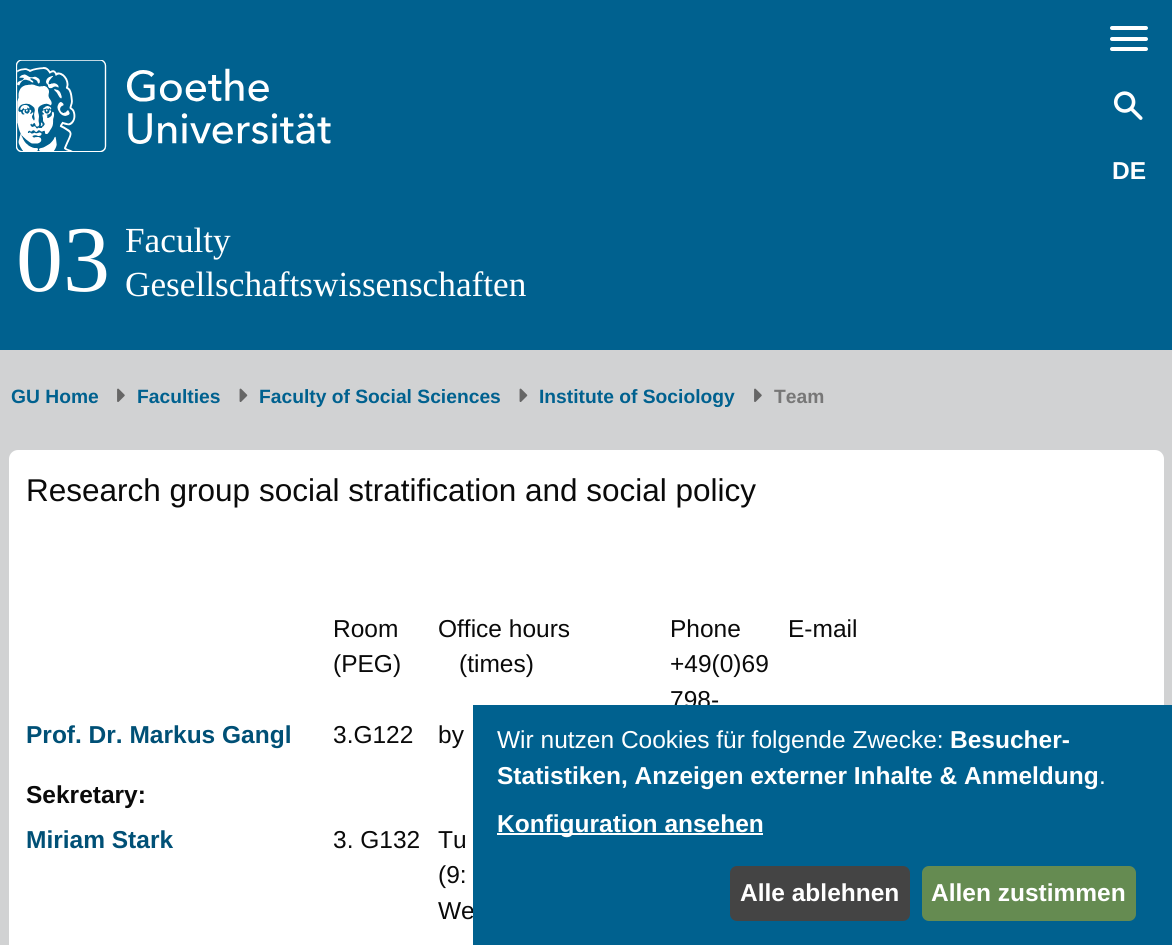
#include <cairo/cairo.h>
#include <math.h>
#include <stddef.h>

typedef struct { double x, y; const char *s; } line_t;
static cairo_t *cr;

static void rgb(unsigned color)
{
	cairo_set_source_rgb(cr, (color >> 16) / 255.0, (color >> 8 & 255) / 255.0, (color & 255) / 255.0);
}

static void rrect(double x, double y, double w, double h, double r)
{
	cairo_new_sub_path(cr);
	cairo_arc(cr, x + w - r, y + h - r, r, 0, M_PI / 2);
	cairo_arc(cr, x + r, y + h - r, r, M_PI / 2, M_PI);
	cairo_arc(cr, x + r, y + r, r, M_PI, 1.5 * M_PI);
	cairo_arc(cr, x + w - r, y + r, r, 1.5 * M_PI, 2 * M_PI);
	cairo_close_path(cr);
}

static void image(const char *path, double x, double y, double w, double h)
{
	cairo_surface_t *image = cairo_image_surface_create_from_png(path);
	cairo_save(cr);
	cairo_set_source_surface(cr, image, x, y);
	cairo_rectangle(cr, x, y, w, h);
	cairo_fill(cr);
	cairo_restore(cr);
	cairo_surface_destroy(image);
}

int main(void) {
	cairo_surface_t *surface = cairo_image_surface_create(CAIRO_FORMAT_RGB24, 1172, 945);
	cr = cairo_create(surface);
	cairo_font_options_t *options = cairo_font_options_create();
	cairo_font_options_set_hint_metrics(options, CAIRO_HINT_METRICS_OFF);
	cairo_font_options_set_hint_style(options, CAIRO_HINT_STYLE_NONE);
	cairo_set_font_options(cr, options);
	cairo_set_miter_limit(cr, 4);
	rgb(0x00618f);
	cairo_paint(cr);
	rgb(0xffffff);
	rrect(1110, 26, 38, 4, 2);
	cairo_fill(cr);
	rrect(1110, 37, 38, 4, 2);
	cairo_fill(cr);
	rrect(1110, 47, 38, 4, 2);
	cairo_fill(cr);
	image("img/1.png", 1113, 91, 30, 29);
	image("img/2.png", 16, 60, 315, 92);
	rgb(0xd1d2d3);
	cairo_rectangle(cr, 0, 350, 1172, 595);
	cairo_fill(cr);
	image("img/3.png", 117, 388, 8, 14);
	image("img/4.png", 239, 388, 9, 14);
	image("img/4.png", 519, 388, 9, 14);
	image("img/3.png", 754, 388, 8, 14);
	rgb(0xffffff);
	rrect(9, 450, 1155, 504, 9);
	cairo_fill(cr);
	cairo_select_font_face(cr, "Liberation Sans", CAIRO_FONT_SLANT_NORMAL, CAIRO_FONT_WEIGHT_BOLD);
	cairo_set_font_size(cr, 24.5);
	cairo_move_to(cr, 1112, 179);
	cairo_show_text(cr, "DE");
	cairo_select_font_face(cr, "Liberation Serif", CAIRO_FONT_SLANT_NORMAL, CAIRO_FONT_WEIGHT_NORMAL);
	cairo_set_font_size(cr, 94);
	cairo_move_to(cr, 16, 291);
	cairo_show_text(cr, "03");
	cairo_set_font_size(cr, 35.25);
	cairo_move_to(cr, 125, 252);
	cairo_show_text(cr, "Faculty");
	cairo_move_to(cr, 125, 296);
	cairo_show_text(cr, "Gesellschaftswissenschaften");
	cairo_select_font_face(cr, "Liberation Sans", CAIRO_FONT_SLANT_NORMAL, CAIRO_FONT_WEIGHT_BOLD);
	cairo_set_font_size(cr, 19.25);
	rgb(0x00618f);
	{
		static const line_t items[] = {
			{11, 403, "GU Home"},
			{137, 403, "Faculties"},
			{259, 403, "Faculty of Social Sciences"},
			{539, 403, "Institute of Sociology"},
		};
		for (size_t i = 0; i < sizeof items / sizeof *items; i++) {
			cairo_move_to(cr, items[i].x, items[i].y);
			cairo_show_text(cr, items[i].s);
		}
	}
	rgb(0x777777);
	cairo_move_to(cr, 774, 403);
	cairo_show_text(cr, "Team");
	cairo_select_font_face(cr, "Liberation Sans", CAIRO_FONT_SLANT_NORMAL, CAIRO_FONT_WEIGHT_NORMAL);
	cairo_set_font_size(cr, 31.5);
	rgb(0x0a0a0a);
	cairo_move_to(cr, 26, 501);
	cairo_show_text(cr, "Research group social stratification and social policy");
	cairo_set_font_size(cr, 24.5);
	{
		static const line_t items[] = {
			{333, 637, "Room"},
			{333, 672, "(PEG)"},
			{438, 637, "Office hours"},
			{459, 672, "(times)"},
			{670, 637, "Phone"},
			{670, 672, "+49(0)69"},
			{670, 708, "798-"},
			{788, 637, "E-mail"},
		};
		for (size_t i = 0; i < sizeof items / sizeof *items; i++) {
			cairo_move_to(cr, items[i].x, items[i].y);
			cairo_show_text(cr, items[i].s);
		}
	}
	cairo_select_font_face(cr, "Liberation Sans", CAIRO_FONT_SLANT_NORMAL, CAIRO_FONT_WEIGHT_BOLD);
	rgb(0x005076);
	cairo_move_to(cr, 26, 743);
	cairo_show_text(cr, "Prof. Dr. Markus Gangl");
	cairo_select_font_face(cr, "Liberation Sans", CAIRO_FONT_SLANT_NORMAL, CAIRO_FONT_WEIGHT_NORMAL);
	rgb(0x0a0a0a);
	cairo_move_to(cr, 333, 743);
	cairo_show_text(cr, "3.G122");
	cairo_move_to(cr, 438, 743);
	cairo_show_text(cr, "by");
	cairo_select_font_face(cr, "Liberation Sans", CAIRO_FONT_SLANT_NORMAL, CAIRO_FONT_WEIGHT_BOLD);
	cairo_move_to(cr, 26, 803);
	cairo_show_text(cr, "Sekretary:");
	rgb(0x005076);
	cairo_move_to(cr, 26, 848);
	cairo_show_text(cr, "Miriam Stark");
	cairo_select_font_face(cr, "Liberation Sans", CAIRO_FONT_SLANT_NORMAL, CAIRO_FONT_WEIGHT_NORMAL);
	rgb(0x0a0a0a);
	{
		static const line_t items[] = {
			{333, 848, "3. G132"},
			{438, 848, "Tu"},
			{438, 883, "(9:"},
			{438, 919, "We"},
		};
		for (size_t i = 0; i < sizeof items / sizeof *items; i++) {
			cairo_move_to(cr, items[i].x, items[i].y);
			cairo_show_text(cr, items[i].s);
		}
	}
	rgb(0x00618f);
	cairo_rectangle(cr, 473, 705, 699, 240);
	cairo_fill(cr);
	rgb(0xffffff);
	cairo_move_to(cr, 497, 748);
	cairo_show_text(cr, "Wir nutzen Cookies für folgende Zwecke:");
	cairo_select_font_face(cr, "Liberation Sans", CAIRO_FONT_SLANT_NORMAL, CAIRO_FONT_WEIGHT_BOLD);
	cairo_move_to(cr, 950, 748);
	cairo_show_text(cr, "Besucher-");
	cairo_move_to(cr, 497, 784);
	cairo_show_text(cr, "Statistiken, Anzeigen externer Inhalte & Anmeldung");
	cairo_select_font_face(cr, "Liberation Sans", CAIRO_FONT_SLANT_NORMAL, CAIRO_FONT_WEIGHT_NORMAL);
	cairo_move_to(cr, 1099, 784);
	cairo_show_text(cr, ".");
	cairo_rectangle(cr, 497, 833, 266, 2);
	cairo_fill(cr);
	cairo_select_font_face(cr, "Liberation Sans", CAIRO_FONT_SLANT_NORMAL, CAIRO_FONT_WEIGHT_BOLD);
	cairo_move_to(cr, 497, 832);
	cairo_show_text(cr, "Konfiguration ansehen");
	rgb(0x444444);
	rrect(730, 866, 180, 55, 7);
	cairo_fill(cr);
	rgb(0xffffff);
	cairo_move_to(cr, 740, 901);
	cairo_show_text(cr, "Alle ablehnen");
	rgb(0x658b51);
	rrect(922, 866, 214, 55, 7);
	cairo_fill(cr);
	rgb(0xffffff);
	cairo_move_to(cr, 931, 901);
	cairo_show_text(cr, "Allen zustimmen");
	cairo_surface_write_to_png(surface, "page.png");
	cairo_font_options_destroy(options);
	cairo_destroy(cr);
	cairo_surface_destroy(surface);
	return 0;
}
